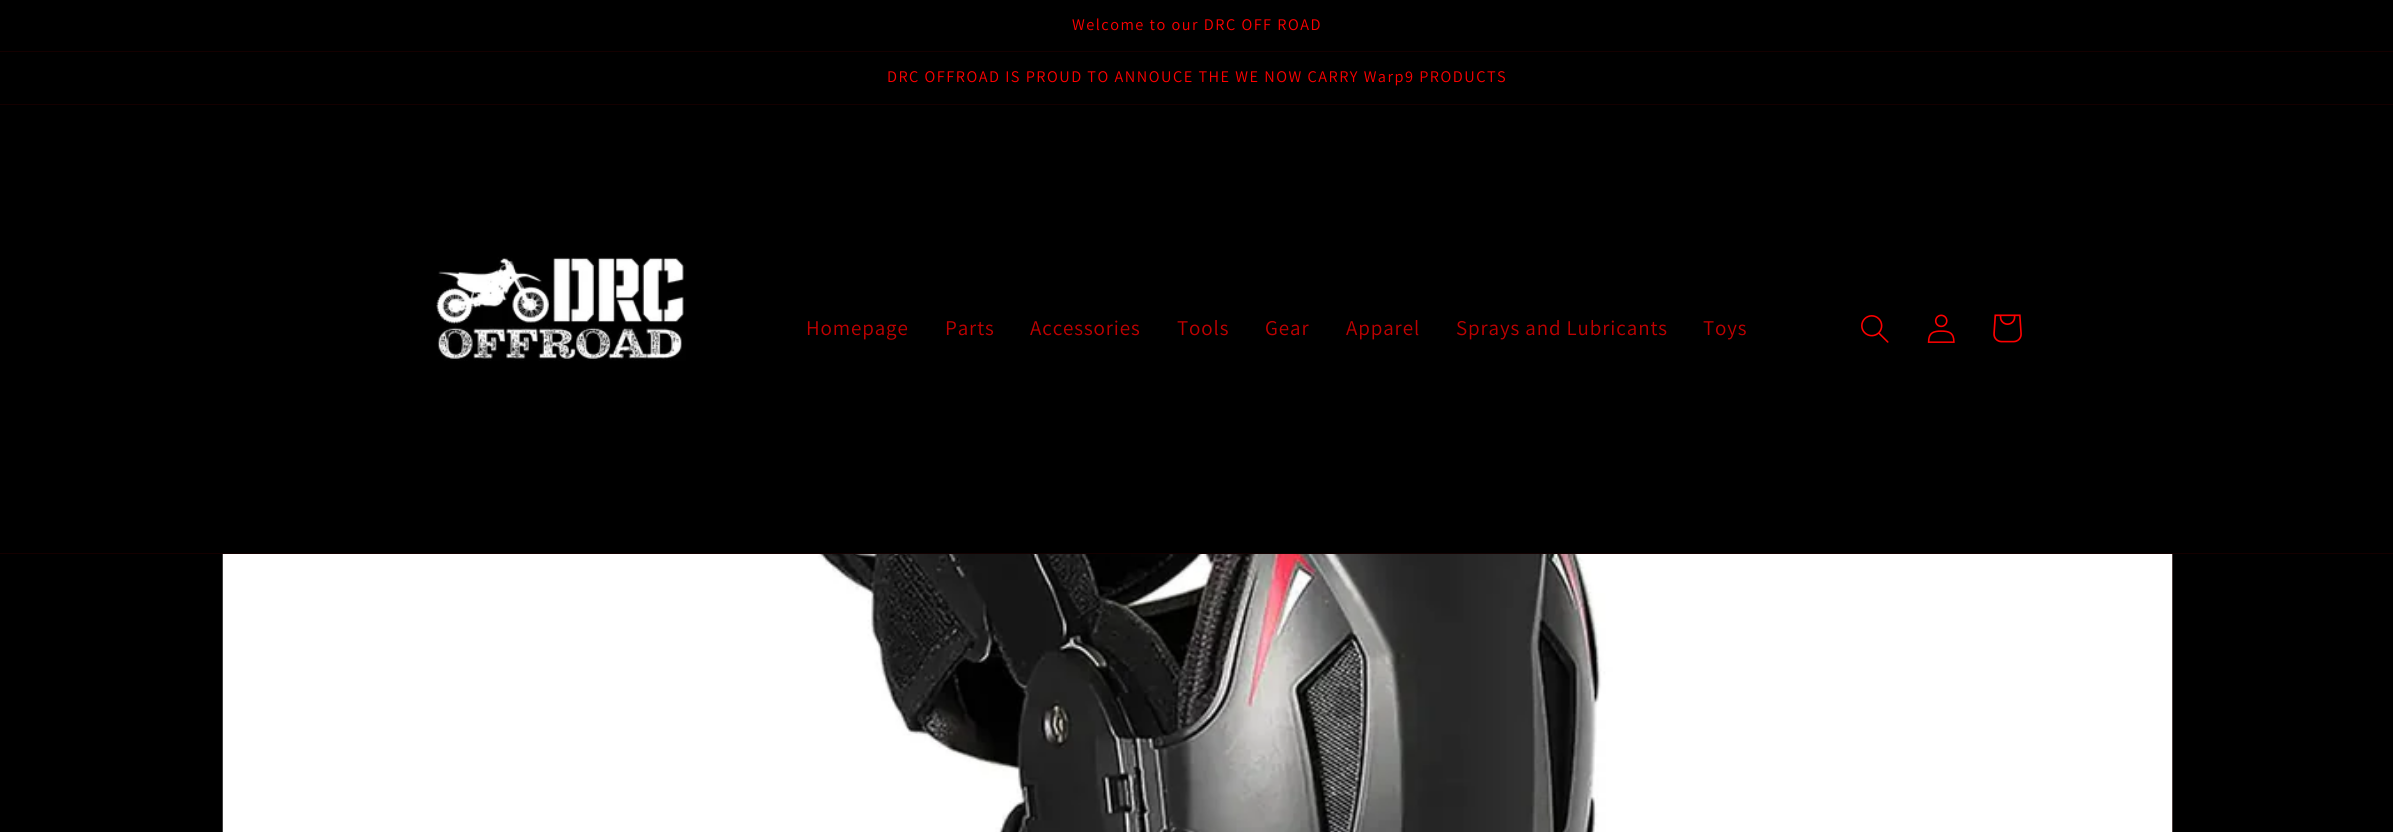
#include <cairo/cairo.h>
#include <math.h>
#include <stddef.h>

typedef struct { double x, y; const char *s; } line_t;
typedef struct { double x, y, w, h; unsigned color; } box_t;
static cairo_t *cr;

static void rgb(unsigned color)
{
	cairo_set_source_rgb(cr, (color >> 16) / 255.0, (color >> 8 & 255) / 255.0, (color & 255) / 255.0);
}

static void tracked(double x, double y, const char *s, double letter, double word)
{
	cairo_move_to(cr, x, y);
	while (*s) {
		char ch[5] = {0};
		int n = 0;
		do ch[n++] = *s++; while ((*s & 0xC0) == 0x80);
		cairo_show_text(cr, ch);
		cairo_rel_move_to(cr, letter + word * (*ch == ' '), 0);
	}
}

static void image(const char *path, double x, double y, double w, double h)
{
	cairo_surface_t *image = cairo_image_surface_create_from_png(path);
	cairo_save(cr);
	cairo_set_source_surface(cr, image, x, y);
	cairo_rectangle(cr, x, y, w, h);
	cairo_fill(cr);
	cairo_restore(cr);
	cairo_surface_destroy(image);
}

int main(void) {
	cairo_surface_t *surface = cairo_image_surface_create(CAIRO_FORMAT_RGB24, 2393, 832);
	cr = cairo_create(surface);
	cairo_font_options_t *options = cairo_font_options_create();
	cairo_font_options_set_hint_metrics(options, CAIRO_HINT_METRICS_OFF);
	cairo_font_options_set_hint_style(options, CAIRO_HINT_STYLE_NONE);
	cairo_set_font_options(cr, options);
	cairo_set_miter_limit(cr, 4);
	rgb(0x000000);
	cairo_paint(cr);
	{
		static const box_t items[] = {
			{0, 51, 2393, 1, 0x140000},
			{0, 104, 2393, 1, 0x140000},
			{0, 553, 2393, 1, 0x140000},
		};
		for (size_t i = 0; i < sizeof items / sizeof *items; i++) {
			rgb(items[i].color);
			cairo_rectangle(cr, items[i].x, items[i].y, items[i].w, items[i].h);
			cairo_fill(cr);
		}
	}
	image("img/1.png", 436, 257, 250, 104);
	image("img/2.png", 1861, 315, 28, 28);
	image("img/3.png", 1927, 314, 28, 29);
	image("img/4.png", 1993, 314, 29, 29);
	rgb(0x130000);
	cairo_rectangle(cr, 2172, 554, 1, 278);
	cairo_fill(cr);
	image("img/5.png", 222, 554, 1951, 278);
	cairo_select_font_face(cr, "Assistant", CAIRO_FONT_SLANT_NORMAL, CAIRO_FONT_WEIGHT_NORMAL);
	cairo_set_font_size(cr, 16.25);
	rgb(0xff0000);
	tracked(1072, 30, "Welcome to our DRC OFF ROAD", 1.5, 0);
	tracked(887, 82, "DRC OFFROAD IS PROUD TO ANNOUCE THE WE NOW CARRY Warp9 PRODUCTS", 1.5, 0);
	cairo_set_font_size(cr, 21);
	rgb(0xbf0000);
	{
		static const line_t items[] = {
			{806, 335, "Homepage"},
			{945, 335, "Parts"},
			{1030, 335, "Accessories"},
			{1177, 335, "Tools"},
			{1265, 335, "Gear"},
			{1346, 335, "Apparel"},
			{1456, 335, "Sprays and Lubricants"},
			{1703, 335, "Toys"},
		};
		for (size_t i = 0; i < sizeof items / sizeof *items; i++) {
			tracked(items[i].x, items[i].y, items[i].s, 0.9, 0);
		}
	}
	cairo_surface_write_to_png(surface, "page.png");
	cairo_font_options_destroy(options);
	cairo_destroy(cr);
	cairo_surface_destroy(surface);
	return 0;
}
